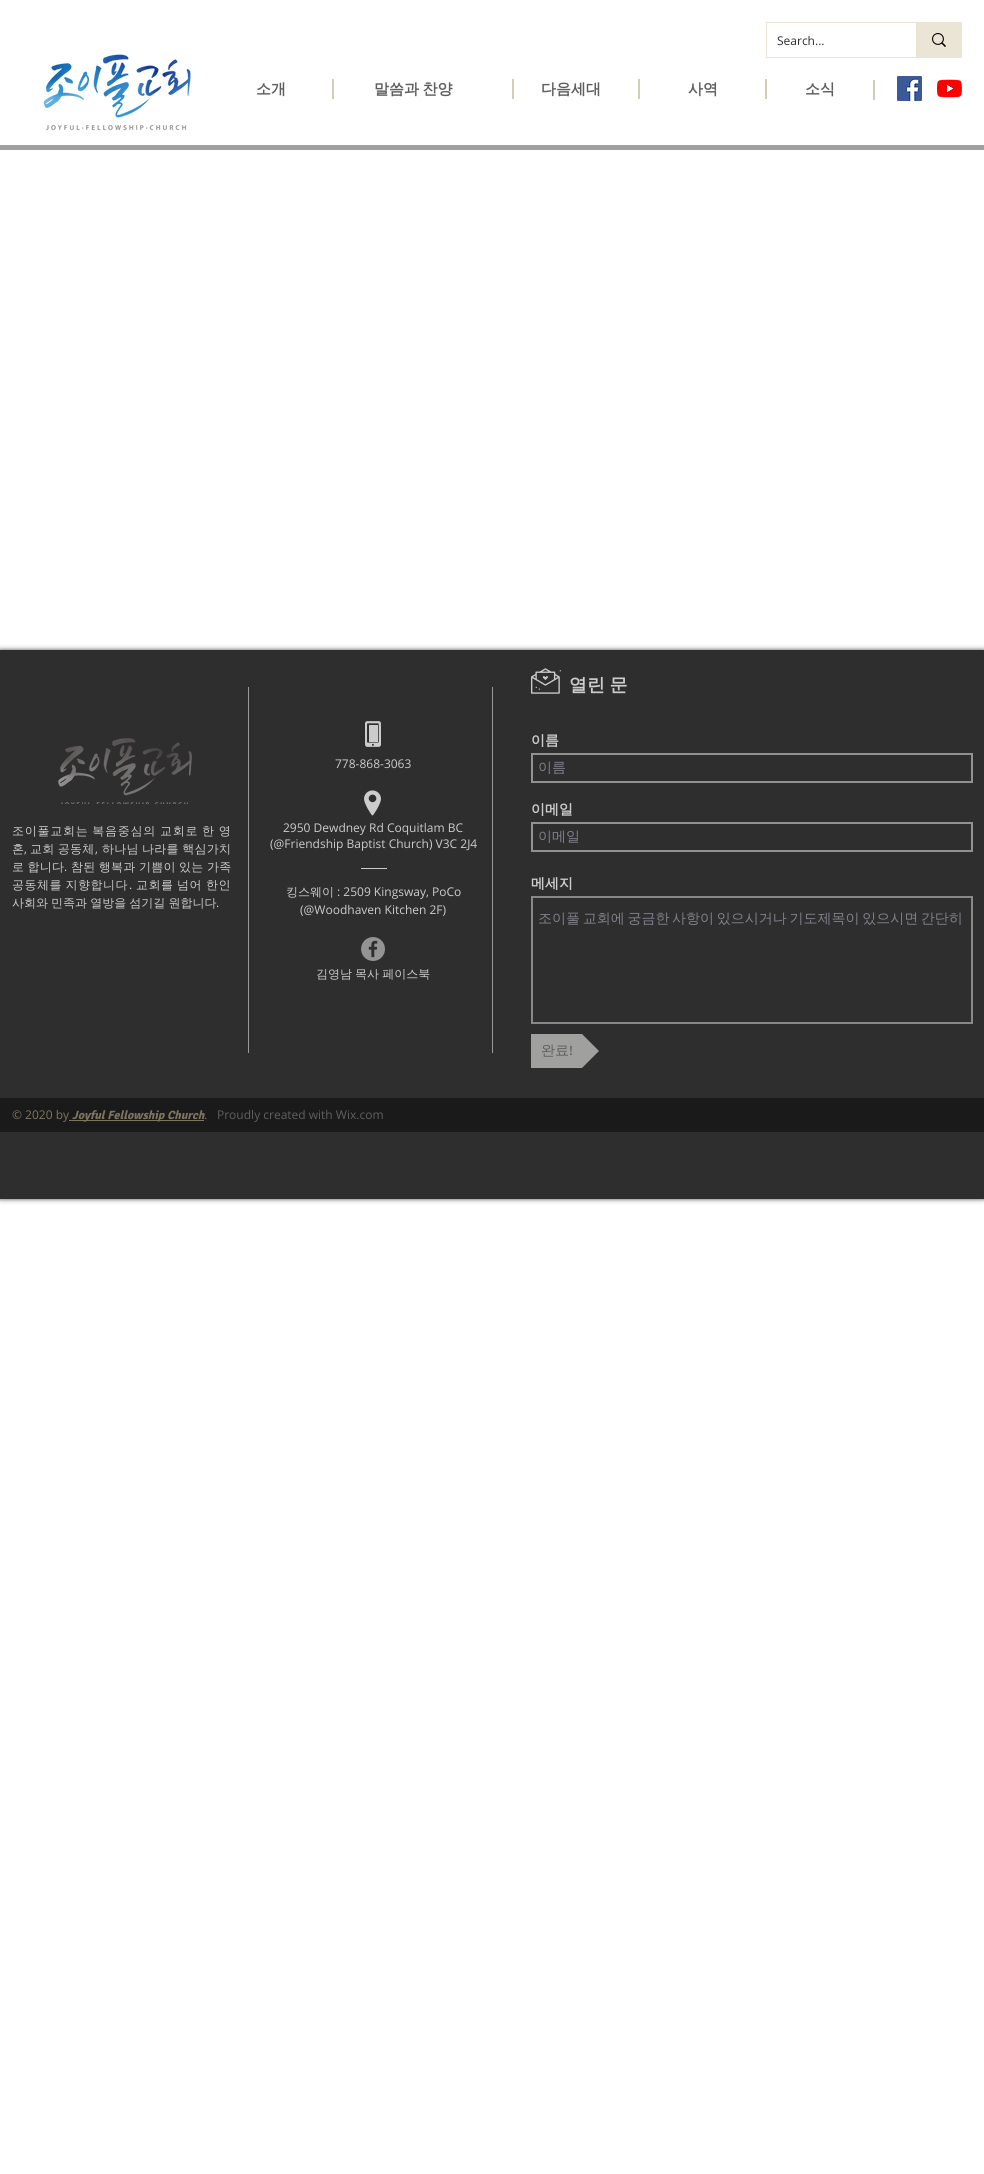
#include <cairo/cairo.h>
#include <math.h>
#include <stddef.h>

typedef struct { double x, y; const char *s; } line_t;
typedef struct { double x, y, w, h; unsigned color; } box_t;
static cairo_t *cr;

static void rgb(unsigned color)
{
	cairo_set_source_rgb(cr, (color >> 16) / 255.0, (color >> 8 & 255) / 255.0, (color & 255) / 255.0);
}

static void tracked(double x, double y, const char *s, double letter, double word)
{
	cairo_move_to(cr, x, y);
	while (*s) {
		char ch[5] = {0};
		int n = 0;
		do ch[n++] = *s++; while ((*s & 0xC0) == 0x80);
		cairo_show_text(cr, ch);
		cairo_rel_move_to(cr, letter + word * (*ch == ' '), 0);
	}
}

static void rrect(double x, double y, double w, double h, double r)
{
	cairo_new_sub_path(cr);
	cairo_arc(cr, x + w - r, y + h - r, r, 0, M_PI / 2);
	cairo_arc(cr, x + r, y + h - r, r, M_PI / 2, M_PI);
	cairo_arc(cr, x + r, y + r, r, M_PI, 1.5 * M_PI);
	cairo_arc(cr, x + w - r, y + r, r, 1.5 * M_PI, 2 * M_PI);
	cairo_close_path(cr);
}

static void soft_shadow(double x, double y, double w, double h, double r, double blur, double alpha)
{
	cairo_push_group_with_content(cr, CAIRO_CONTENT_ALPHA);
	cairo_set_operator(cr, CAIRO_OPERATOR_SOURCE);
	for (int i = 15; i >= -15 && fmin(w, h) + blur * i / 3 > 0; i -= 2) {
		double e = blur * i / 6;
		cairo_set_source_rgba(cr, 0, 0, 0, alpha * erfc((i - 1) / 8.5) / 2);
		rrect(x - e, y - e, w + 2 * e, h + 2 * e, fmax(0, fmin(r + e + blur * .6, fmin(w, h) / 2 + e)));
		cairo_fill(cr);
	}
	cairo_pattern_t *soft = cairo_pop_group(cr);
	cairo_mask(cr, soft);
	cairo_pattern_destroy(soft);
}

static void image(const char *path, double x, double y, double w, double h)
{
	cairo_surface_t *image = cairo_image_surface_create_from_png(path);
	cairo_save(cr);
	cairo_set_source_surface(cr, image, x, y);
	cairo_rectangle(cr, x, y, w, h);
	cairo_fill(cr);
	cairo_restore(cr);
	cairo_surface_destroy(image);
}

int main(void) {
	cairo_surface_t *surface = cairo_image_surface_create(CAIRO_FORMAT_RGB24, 984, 2174);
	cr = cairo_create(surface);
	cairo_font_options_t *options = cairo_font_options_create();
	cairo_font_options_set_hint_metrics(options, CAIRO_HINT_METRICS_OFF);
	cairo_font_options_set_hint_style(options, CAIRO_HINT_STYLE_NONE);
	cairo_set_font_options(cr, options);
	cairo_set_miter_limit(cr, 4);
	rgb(0xffffff);
	cairo_paint(cr);
	cairo_rectangle(cr, 766.5, 22.5, 195, 35);
	rgb(0xebe5d6);
	cairo_set_line_width(cr, 1);
	cairo_stroke(cr);
	cairo_rectangle(cr, 916, 23, 45, 34);
	cairo_fill(cr);
	image("img/1.png", 932, 33, 14, 14);
	image("img/2.png", 43, 54, 148, 77);
	{
		static const box_t items[] = {
			{332, 79, 2, 20, 0xd3ccba},
			{512, 79, 2, 20, 0xd3ccba},
			{638, 79, 2, 20, 0xd3ccba},
			{765, 79, 2, 20, 0xd3ccba},
			{873, 80, 2, 20, 0xd3ccba},
		};
		for (size_t i = 0; i < sizeof items / sizeof *items; i++) {
			rgb(items[i].color);
			cairo_rectangle(cr, items[i].x, items[i].y, items[i].w, items[i].h);
			cairo_fill(cr);
		}
	}
	image("img/3.png", 897, 76, 25, 25);
	image("img/4.png", 937, 79, 25, 19);
	rgb(0xa0a09f);
	cairo_rectangle(cr, 0, 145, 984, 5);
	cairo_fill(cr);
	rgb(0x000000);
	soft_shadow(0, 650, 984, 549, 0, 2.5, 0.7);
	rgb(0x2f2e2e);
	cairo_rectangle(cr, 0, 650, 984, 549);
	cairo_fill(cr);
	image("img/5.png", 58, 738, 134, 66);
	rgb(0x999999);
	cairo_rectangle(cr, 248, 687, 1, 366);
	cairo_fill(cr);
	image("img/6.png", 365, 721, 16, 26);
	image("img/7.png", 364, 790, 17, 26);
	rgb(0xcccccc);
	cairo_rectangle(cr, 361, 868, 26, 1);
	cairo_fill(cr);
	image("img/8.png", 361, 937, 24, 24);
	rgb(0x999999);
	cairo_rectangle(cr, 492, 687, 1, 366);
	cairo_fill(cr);
	image("img/9.png", 531, 668, 30, 26);
	cairo_rectangle(cr, 532, 754, 440, 28);
	rgb(0x919191);
	cairo_set_line_width(cr, 2);
	cairo_stroke(cr);
	cairo_rectangle(cr, 532, 823, 440, 28);
	cairo_stroke(cr);
	cairo_rectangle(cr, 532, 897, 440, 126);
	rgb(0x888888);
	cairo_stroke(cr);
	rgb(0xa0a09f);
	cairo_rectangle(cr, 531, 1034, 18, 34);
	cairo_fill(cr);
	cairo_save(cr);
	cairo_rectangle(cr, 531, 1034, 68, 34);
	cairo_clip(cr);
	cairo_new_path(cr);
	cairo_move_to(cr, 599, 1051);
	cairo_line_to(cr, 549, 1051);
	cairo_line_to(cr, 549, 1001);
	cairo_close_path(cr);
	cairo_move_to(cr, 549, 1051);
	cairo_line_to(cr, 599, 1051);
	cairo_line_to(cr, 549, 1101);
	cairo_close_path(cr);
	cairo_fill(cr);
	cairo_restore(cr);
	rgb(0x1b1a1a);
	cairo_rectangle(cr, 0, 1098, 984, 34);
	cairo_fill(cr);
	rgb(0x7d7560);
	cairo_rectangle(cr, 69, 1120, 135, 1);
	cairo_fill(cr);
	cairo_select_font_face(cr, "Open Sans", CAIRO_FONT_SLANT_NORMAL, CAIRO_FONT_WEIGHT_NORMAL);
	cairo_set_font_size(cr, 12);
	rgb(0x2f2e2e);
	cairo_move_to(cr, 777, 45);
	cairo_show_text(cr, "Search...");
	cairo_select_font_face(cr, "WenQuanYi Zen Hei", CAIRO_FONT_SLANT_NORMAL, CAIRO_FONT_WEIGHT_BOLD);
	cairo_set_font_size(cr, 15);
	rgb(0x605e5e);
	cairo_move_to(cr, 256, 94);
	cairo_show_text(cr, "소개");
	tracked(374, 94, "말씀과 찬양", 0, -1);
	{
		static const line_t items[] = {
			{541, 94, "다음세대"},
			{688, 94, "사역"},
			{805, 94, "소식"},
		};
		for (size_t i = 0; i < sizeof items / sizeof *items; i++) {
			cairo_move_to(cr, items[i].x, items[i].y);
			cairo_show_text(cr, items[i].s);
		}
	}
	cairo_select_font_face(cr, "Open Sans", CAIRO_FONT_SLANT_NORMAL, CAIRO_FONT_WEIGHT_NORMAL);
	cairo_set_font_size(cr, 12);
	rgb(0xcccccc);
	{
		static const line_t items[] = {
			{335, 768, "778-868-3063"},
			{283, 832, "2950 Dewdney Rd Coquitlam BC"},
			{270, 848, "(@Friendship Baptist Church) V3C 2J4"},
		};
		for (size_t i = 0; i < sizeof items / sizeof *items; i++) {
			cairo_move_to(cr, items[i].x, items[i].y);
			cairo_show_text(cr, items[i].s);
		}
	}
	cairo_select_font_face(cr, "WenQuanYi Zen Hei Medium", CAIRO_FONT_SLANT_NORMAL, CAIRO_FONT_WEIGHT_NORMAL);
	cairo_move_to(cr, 286, 896);
	cairo_show_text(cr, "킹스웨이");
	cairo_select_font_face(cr, "Open Sans", CAIRO_FONT_SLANT_NORMAL, CAIRO_FONT_WEIGHT_NORMAL);
	cairo_move_to(cr, 337, 896);
	cairo_show_text(cr, ": 2509 Kingsway, PoCo");
	cairo_move_to(cr, 300, 914);
	cairo_show_text(cr, "(@Woodhaven Kitchen 2F)");
	cairo_select_font_face(cr, "WenQuanYi Zen Hei Medium", CAIRO_FONT_SLANT_NORMAL, CAIRO_FONT_WEIGHT_NORMAL);
	tracked(316, 978, "김영남 목사 페이스북", 0, -0.5);
	cairo_select_font_face(cr, "WenQuanYi Zen Hei", CAIRO_FONT_SLANT_NORMAL, CAIRO_FONT_WEIGHT_BOLD);
	cairo_set_font_size(cr, 18);
	tracked(569, 691, "열린 문", 0, -1);
	cairo_set_font_size(cr, 14);
	cairo_move_to(cr, 531, 745);
	cairo_show_text(cr, "이름");
	cairo_select_font_face(cr, "WenQuanYi Zen Hei Medium", CAIRO_FONT_SLANT_NORMAL, CAIRO_FONT_WEIGHT_NORMAL);
	rgb(0x7f808a);
	cairo_move_to(cr, 538, 772);
	cairo_show_text(cr, "이름");
	cairo_select_font_face(cr, "WenQuanYi Zen Hei", CAIRO_FONT_SLANT_NORMAL, CAIRO_FONT_WEIGHT_BOLD);
	rgb(0xcccccc);
	cairo_move_to(cr, 531, 814);
	cairo_show_text(cr, "이메일");
	cairo_select_font_face(cr, "WenQuanYi Zen Hei Medium", CAIRO_FONT_SLANT_NORMAL, CAIRO_FONT_WEIGHT_NORMAL);
	rgb(0x7f808a);
	cairo_move_to(cr, 538, 841);
	cairo_show_text(cr, "이메일");
	cairo_select_font_face(cr, "WenQuanYi Zen Hei", CAIRO_FONT_SLANT_NORMAL, CAIRO_FONT_WEIGHT_BOLD);
	rgb(0xcccccc);
	cairo_move_to(cr, 531, 888);
	cairo_show_text(cr, "메세지");
	cairo_select_font_face(cr, "WenQuanYi Zen Hei Medium", CAIRO_FONT_SLANT_NORMAL, CAIRO_FONT_WEIGHT_NORMAL);
	rgb(0x7f808a);
	tracked(538, 923, "조이풀 교회에 궁금한 사항이 있으시거나 기도제목이 있으시면 간단히", 0, -1.5);
	rgb(0x605e5e);
	cairo_move_to(cr, 541, 1055);
	cairo_show_text(cr, "완료");
	cairo_select_font_face(cr, "Play", CAIRO_FONT_SLANT_NORMAL, CAIRO_FONT_WEIGHT_NORMAL);
	cairo_move_to(cr, 569, 1055);
	cairo_show_text(cr, "!");
	cairo_select_font_face(cr, "WenQuanYi Zen Hei Medium", CAIRO_FONT_SLANT_NORMAL, CAIRO_FONT_WEIGHT_NORMAL);
	cairo_set_font_size(cr, 12);
	rgb(0xcccccc);
	tracked(12, 835, "조이풀교회는 복음중심의 교회로 한 영", 0.75, -0.5);
	tracked(12, 853, "혼", 0.25, 0);
	cairo_select_font_face(cr, "Open Sans", CAIRO_FONT_SLANT_NORMAL, CAIRO_FONT_WEIGHT_NORMAL);
	tracked(24, 853, ",", 0.25, 0);
	cairo_select_font_face(cr, "WenQuanYi Zen Hei Medium", CAIRO_FONT_SLANT_NORMAL, CAIRO_FONT_WEIGHT_NORMAL);
	tracked(30, 853, "교회 공동체", 0.25, -0.5);
	cairo_select_font_face(cr, "Open Sans", CAIRO_FONT_SLANT_NORMAL, CAIRO_FONT_WEIGHT_NORMAL);
	tracked(95, 853, ",", 0.25, 0);
	cairo_select_font_face(cr, "WenQuanYi Zen Hei Medium", CAIRO_FONT_SLANT_NORMAL, CAIRO_FONT_WEIGHT_NORMAL);
	tracked(102, 853, "하나님 나라를 핵심가치", 0.25, -0.5);
	tracked(12, 871, "로 합니다", 0.25, -0.5);
	cairo_select_font_face(cr, "Open Sans", CAIRO_FONT_SLANT_NORMAL, CAIRO_FONT_WEIGHT_NORMAL);
	tracked(64, 871, ".", 0.25, 0);
	cairo_select_font_face(cr, "WenQuanYi Zen Hei Medium", CAIRO_FONT_SLANT_NORMAL, CAIRO_FONT_WEIGHT_NORMAL);
	tracked(71, 871, "참된 행복과 기쁨이 있는 가족", 0.25, -0.5);
	tracked(12, 889, "공동체를 지향합니다", 0.5, -0.5);
	cairo_select_font_face(cr, "Open Sans", CAIRO_FONT_SLANT_NORMAL, CAIRO_FONT_WEIGHT_NORMAL);
	tracked(129, 889, ".", 0.5, 0);
	cairo_select_font_face(cr, "WenQuanYi Zen Hei Medium", CAIRO_FONT_SLANT_NORMAL, CAIRO_FONT_WEIGHT_NORMAL);
	tracked(136, 889, "교회를 넘어", 0.5, -0.5);
	tracked(206, 889, "한인", 0.5, 0);
	tracked(12, 907, "사회와 민족과 열방을 섬기길 원합니다", 0, -0.5);
	cairo_select_font_face(cr, "Open Sans", CAIRO_FONT_SLANT_NORMAL, CAIRO_FONT_WEIGHT_NORMAL);
	cairo_move_to(cr, 216, 907);
	cairo_show_text(cr, ".");
	rgb(0x7d7560);
	cairo_move_to(cr, 12, 1119);
	cairo_show_text(cr, "© 2020 by");
	cairo_select_font_face(cr, "Signika", CAIRO_FONT_SLANT_ITALIC, CAIRO_FONT_WEIGHT_BOLD);
	cairo_move_to(cr, 72, 1119);
	cairo_show_text(cr, "Joyful Fellowship Church");
	cairo_select_font_face(cr, "Open Sans", CAIRO_FONT_SLANT_NORMAL, CAIRO_FONT_WEIGHT_NORMAL);
	cairo_move_to(cr, 204, 1119);
	cairo_show_text(cr, ".");
	rgb(0x605e5e);
	cairo_move_to(cr, 217, 1119);
	cairo_show_text(cr, "Proudly created with Wix.com");
	cairo_surface_write_to_png(surface, "page.png");
	cairo_font_options_destroy(options);
	cairo_destroy(cr);
	cairo_surface_destroy(surface);
	return 0;
}
